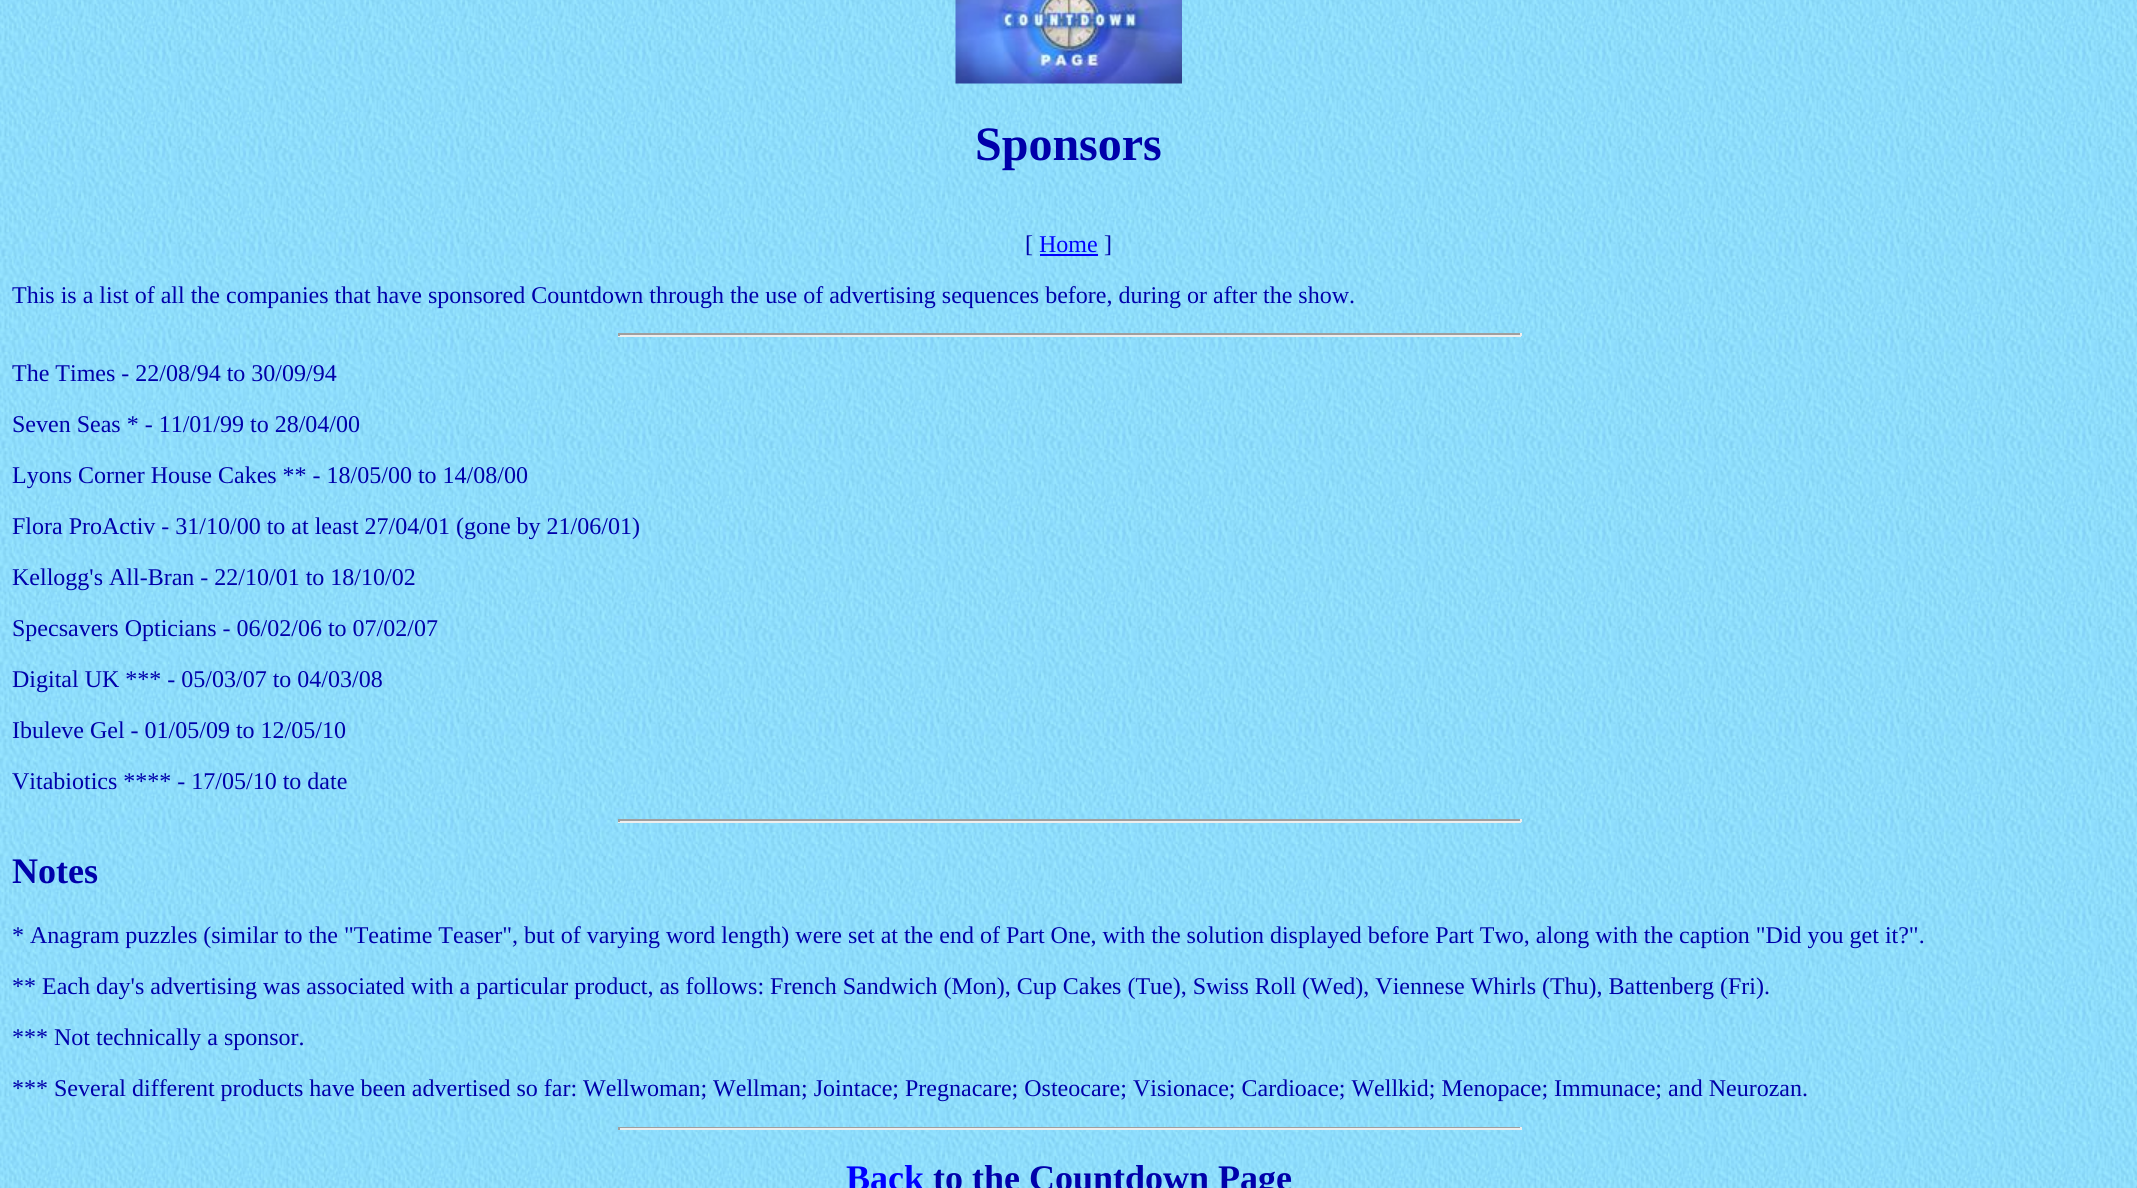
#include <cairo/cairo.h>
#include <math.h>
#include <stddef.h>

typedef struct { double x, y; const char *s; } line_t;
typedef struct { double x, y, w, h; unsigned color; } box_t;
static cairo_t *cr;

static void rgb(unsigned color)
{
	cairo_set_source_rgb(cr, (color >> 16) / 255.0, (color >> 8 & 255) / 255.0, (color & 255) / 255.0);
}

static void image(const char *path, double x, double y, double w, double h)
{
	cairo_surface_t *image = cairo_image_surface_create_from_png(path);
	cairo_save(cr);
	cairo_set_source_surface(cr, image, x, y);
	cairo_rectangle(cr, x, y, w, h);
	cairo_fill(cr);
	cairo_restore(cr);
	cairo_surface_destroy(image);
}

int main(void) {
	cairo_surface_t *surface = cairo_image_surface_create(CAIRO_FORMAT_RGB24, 2137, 1188);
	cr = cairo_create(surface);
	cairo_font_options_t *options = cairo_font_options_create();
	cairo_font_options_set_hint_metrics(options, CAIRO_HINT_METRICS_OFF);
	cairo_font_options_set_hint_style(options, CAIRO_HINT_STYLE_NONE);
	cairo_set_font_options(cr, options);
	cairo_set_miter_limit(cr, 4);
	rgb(0xffffff);
	cairo_paint(cr);
	image("img/1.png", 0, 0, 2137, 1188);
	image("img/2.png", 955, 0, 227, 84);
	{
		static const box_t items[] = {
			{1040, 254, 58, 2, 0x0000ff},
			{618, 333, 903, 2, 0x9f9f9f},
			{1520, 333, 2, 3, 0xeeeeee},
			{618, 335, 903, 2, 0xeeeeee},
			{618, 333, 2, 3, 0x9f9f9f},
			{618, 819, 903, 2, 0x9f9f9f},
			{1520, 819, 2, 3, 0xeeeeee},
			{618, 821, 903, 2, 0xeeeeee},
			{618, 819, 2, 3, 0x9f9f9f},
			{618, 1127, 903, 1, 0x9f9f9f},
			{1520, 1127, 2, 3, 0xeeeeee},
			{618, 1128, 903, 2, 0xeeeeee},
			{618, 1127, 2, 3, 0x9f9f9f},
		};
		for (size_t i = 0; i < sizeof items / sizeof *items; i++) {
			rgb(items[i].color);
			cairo_rectangle(cr, items[i].x, items[i].y, items[i].w, items[i].h);
			cairo_fill(cr);
		}
	}
	cairo_select_font_face(cr, "Liberation Serif", CAIRO_FONT_SLANT_NORMAL, CAIRO_FONT_WEIGHT_BOLD);
	cairo_set_font_size(cr, 48);
	rgb(0x0000aa);
	cairo_move_to(cr, 975, 160);
	cairo_show_text(cr, "Sponsors");
	cairo_select_font_face(cr, "Liberation Serif", CAIRO_FONT_SLANT_NORMAL, CAIRO_FONT_WEIGHT_NORMAL);
	cairo_set_font_size(cr, 24);
	cairo_move_to(cr, 1025, 252);
	cairo_show_text(cr, "[");
	rgb(0x0000ff);
	cairo_move_to(cr, 1039, 252);
	cairo_show_text(cr, "Home");
	rgb(0x0000aa);
	{
		static const line_t items[] = {
			{1104, 252, "]"},
			{12, 303, "This is a list of all the companies that have sponsored Countdown through the use of advertising sequences before, during or after the show."},
			{12, 381, "The Times - 22/08/94 to 30/09/94"},
			{12, 432, "Seven Seas * - 11/01/99 to 28/04/00"},
			{12, 483, "Lyons Corner House Cakes ** - 18/05/00 to 14/08/00"},
			{12, 534, "Flora ProActiv - 31/10/00 to at least 27/04/01 (gone by 21/06/01)"},
			{12, 585, "Kellogg's All-Bran - 22/10/01 to 18/10/02"},
			{12, 636, "Specsavers Opticians - 06/02/06 to 07/02/07"},
			{12, 687, "Digital UK *** - 05/03/07 to 04/03/08"},
			{12, 738, "Ibuleve Gel - 01/05/09 to 12/05/10"},
			{12, 789, "Vitabiotics **** - 17/05/10 to date"},
		};
		for (size_t i = 0; i < sizeof items / sizeof *items; i++) {
			cairo_move_to(cr, items[i].x, items[i].y);
			cairo_show_text(cr, items[i].s);
		}
	}
	cairo_select_font_face(cr, "Liberation Serif", CAIRO_FONT_SLANT_NORMAL, CAIRO_FONT_WEIGHT_BOLD);
	cairo_set_font_size(cr, 36);
	cairo_move_to(cr, 12, 883);
	cairo_show_text(cr, "Notes");
	cairo_select_font_face(cr, "Liberation Serif", CAIRO_FONT_SLANT_NORMAL, CAIRO_FONT_WEIGHT_NORMAL);
	cairo_set_font_size(cr, 24);
	{
		static const line_t items[] = {
			{12, 943, "* Anagram puzzles (similar to the \"Teatime Teaser\", but of varying word length) were set at the end of Part One, with the solution displayed before Part Two, along with the caption \"Did you get it?\"."},
			{12, 994, "** Each day's advertising was associated with a particular product, as follows: French Sandwich (Mon), Cup Cakes (Tue), Swiss Roll (Wed), Viennese Whirls (Thu), Battenberg (Fri)."},
			{12, 1045, "*** Not technically a sponsor."},
			{12, 1096, "*** Several different products have been advertised so far: Wellwoman; Wellman; Jointace; Pregnacare; Osteocare; Visionace; Cardioace; Wellkid; Menopace; Immunace; and Neurozan."},
		};
		for (size_t i = 0; i < sizeof items / sizeof *items; i++) {
			cairo_move_to(cr, items[i].x, items[i].y);
			cairo_show_text(cr, items[i].s);
		}
	}
	cairo_select_font_face(cr, "Liberation Serif", CAIRO_FONT_SLANT_NORMAL, CAIRO_FONT_WEIGHT_BOLD);
	cairo_set_font_size(cr, 36);
	rgb(0x0000ff);
	cairo_move_to(cr, 846, 1190);
	cairo_show_text(cr, "Back");
	rgb(0x0000aa);
	cairo_move_to(cr, 933, 1190);
	cairo_show_text(cr, "to the Countdown Page");
	cairo_surface_write_to_png(surface, "page.png");
	cairo_font_options_destroy(options);
	cairo_destroy(cr);
	cairo_surface_destroy(surface);
	return 0;
}
